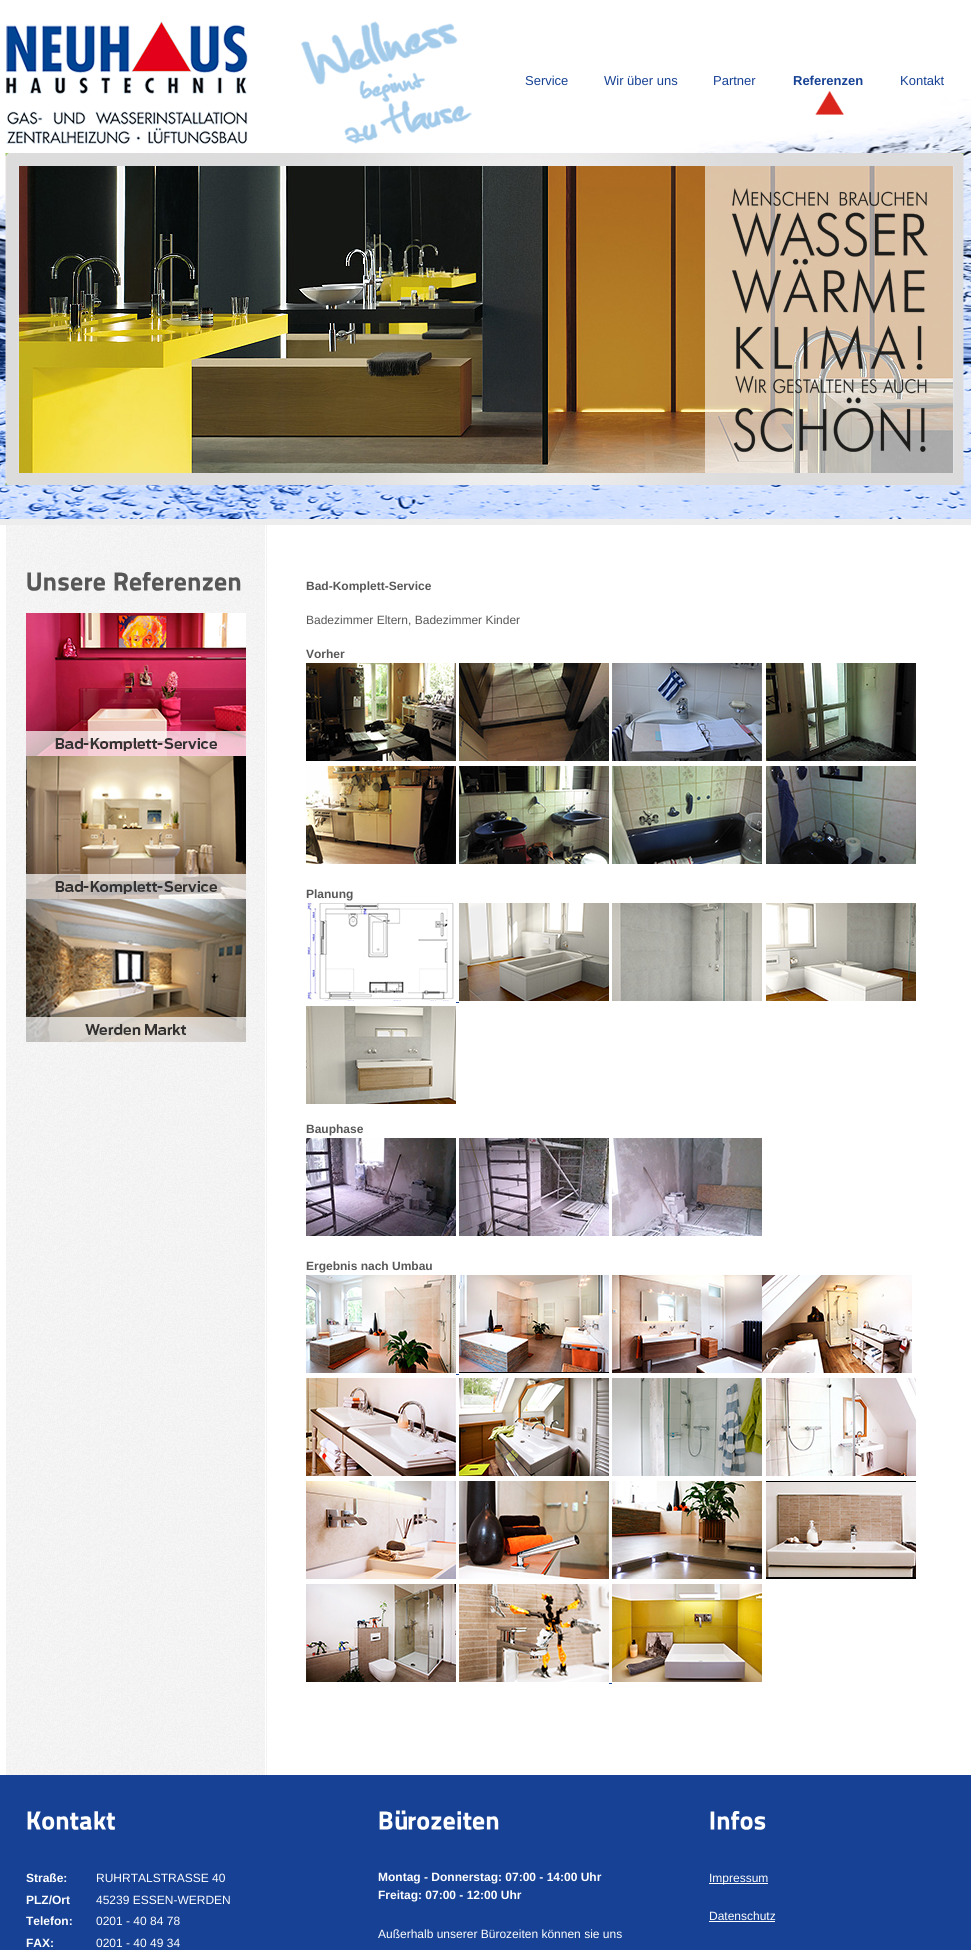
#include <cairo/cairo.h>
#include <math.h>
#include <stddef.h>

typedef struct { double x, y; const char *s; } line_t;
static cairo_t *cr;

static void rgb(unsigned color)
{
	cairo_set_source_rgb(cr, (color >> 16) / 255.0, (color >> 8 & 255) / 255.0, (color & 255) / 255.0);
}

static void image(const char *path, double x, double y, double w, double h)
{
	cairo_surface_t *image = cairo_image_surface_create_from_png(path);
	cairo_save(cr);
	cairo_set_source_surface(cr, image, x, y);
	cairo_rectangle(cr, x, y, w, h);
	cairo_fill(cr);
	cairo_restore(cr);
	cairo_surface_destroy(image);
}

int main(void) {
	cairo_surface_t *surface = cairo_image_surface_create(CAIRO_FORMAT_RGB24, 971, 1950);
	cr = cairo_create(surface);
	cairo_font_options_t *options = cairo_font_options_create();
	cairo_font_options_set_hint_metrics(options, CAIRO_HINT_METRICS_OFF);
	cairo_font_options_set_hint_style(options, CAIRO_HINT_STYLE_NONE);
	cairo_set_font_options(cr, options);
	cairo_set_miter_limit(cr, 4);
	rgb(0xffffff);
	cairo_paint(cr);
	image("img/1.png", 0, 99, 971, 426);
	image("img/2.png", 6, 21, 466, 123);
	image("img/3.png", 815, 91, 29, 24);
	image("img/4.png", 19, 166, 934, 307);
	image("img/5.png", 6, 525, 261, 1250);
	image("img/6.png", 27, 572, 78, 19);
	image("img/7.png", 114, 572, 127, 19);
	image("img/8.png", 26, 613, 220, 143);
	image("img/9.png", 26, 756, 220, 143);
	image("img/10.png", 26, 899, 220, 143);
	image("img/11.png", 306, 663, 150, 98);
	image("img/12.png", 459, 663, 150, 98);
	image("img/13.png", 612, 663, 150, 98);
	image("img/14.png", 766, 663, 150, 98);
	image("img/15.png", 306, 766, 150, 98);
	image("img/16.png", 459, 766, 150, 98);
	image("img/17.png", 612, 766, 150, 98);
	image("img/18.png", 766, 766, 150, 98);
	image("img/19.png", 306, 903, 148, 98);
	image("img/20.png", 459, 903, 150, 98);
	image("img/21.png", 612, 903, 150, 98);
	image("img/22.png", 766, 903, 150, 98);
	rgb(0x164194);
	cairo_rectangle(cr, 456, 1002, 3, 1);
	cairo_fill(cr);
	image("img/23.png", 306, 1006, 150, 98);
	image("img/24.png", 306, 1138, 150, 98);
	image("img/25.png", 459, 1138, 150, 98);
	image("img/26.png", 612, 1138, 150, 98);
	image("img/27.png", 306, 1275, 150, 98);
	image("img/28.png", 459, 1275, 150, 98);
	image("img/29.png", 612, 1275, 150, 98);
	image("img/30.png", 762, 1275, 150, 98);
	cairo_rectangle(cr, 456, 1374, 3, 1);
	cairo_fill(cr);
	image("img/31.png", 306, 1378, 150, 98);
	image("img/32.png", 459, 1378, 150, 98);
	image("img/33.png", 612, 1378, 150, 98);
	image("img/34.png", 766, 1378, 150, 98);
	image("img/35.png", 306, 1481, 150, 98);
	image("img/36.png", 459, 1481, 150, 98);
	image("img/37.png", 612, 1481, 150, 98);
	image("img/38.png", 766, 1481, 150, 98);
	image("img/39.png", 306, 1584, 150, 98);
	image("img/40.png", 459, 1584, 150, 98);
	image("img/41.png", 612, 1584, 150, 98);
	cairo_rectangle(cr, 609, 1683, 3, 1);
	cairo_fill(cr);
	cairo_rectangle(cr, 0, 1775, 971, 175);
	cairo_fill(cr);
	image("img/42.png", 27, 1811, 88, 19);
	image("img/43.png", 379, 1810, 120, 20);
	image("img/44.png", 710, 1811, 56, 19);
	rgb(0xffffff);
	cairo_rectangle(cr, 709, 1883, 59, 1);
	cairo_fill(cr);
	cairo_rectangle(cr, 709, 1921, 66, 1);
	cairo_fill(cr);
	cairo_select_font_face(cr, "Liberation Sans", CAIRO_FONT_SLANT_NORMAL, CAIRO_FONT_WEIGHT_NORMAL);
	cairo_set_font_size(cr, 13);
	rgb(0x164194);
	{
		static const line_t items[] = {
			{525, 85, "Service"},
			{604, 85, "Wir über uns"},
			{713, 85, "Partner"},
		};
		for (size_t i = 0; i < sizeof items / sizeof *items; i++) {
			cairo_move_to(cr, items[i].x, items[i].y);
			cairo_show_text(cr, items[i].s);
		}
	}
	cairo_select_font_face(cr, "Liberation Sans", CAIRO_FONT_SLANT_NORMAL, CAIRO_FONT_WEIGHT_BOLD);
	cairo_move_to(cr, 793, 85);
	cairo_show_text(cr, "Referenzen");
	cairo_select_font_face(cr, "Liberation Sans", CAIRO_FONT_SLANT_NORMAL, CAIRO_FONT_WEIGHT_NORMAL);
	cairo_move_to(cr, 900, 85);
	cairo_show_text(cr, "Kontakt");
	cairo_select_font_face(cr, "Liberation Sans", CAIRO_FONT_SLANT_NORMAL, CAIRO_FONT_WEIGHT_BOLD);
	cairo_set_font_size(cr, 12);
	rgb(0x585757);
	cairo_move_to(cr, 306, 590);
	cairo_show_text(cr, "Bad-Komplett-Service");
	cairo_select_font_face(cr, "Liberation Sans", CAIRO_FONT_SLANT_NORMAL, CAIRO_FONT_WEIGHT_NORMAL);
	cairo_move_to(cr, 306, 624);
	cairo_show_text(cr, "Badezimmer Eltern, Badezimmer Kinder");
	cairo_select_font_face(cr, "Liberation Sans", CAIRO_FONT_SLANT_NORMAL, CAIRO_FONT_WEIGHT_BOLD);
	{
		static const line_t items[] = {
			{306, 658, "Vorher"},
			{306, 898, "Planung"},
			{306, 1133, "Bauphase"},
			{306, 1270, "Ergebnis nach Umbau"},
		};
		for (size_t i = 0; i < sizeof items / sizeof *items; i++) {
			cairo_move_to(cr, items[i].x, items[i].y);
			cairo_show_text(cr, items[i].s);
		}
	}
	rgb(0xffffff);
	cairo_move_to(cr, 26, 1882);
	cairo_show_text(cr, "Straße:");
	cairo_select_font_face(cr, "Liberation Sans", CAIRO_FONT_SLANT_NORMAL, CAIRO_FONT_WEIGHT_NORMAL);
	cairo_move_to(cr, 96, 1882);
	cairo_show_text(cr, "RUHRTALSTRASSE 40");
	cairo_select_font_face(cr, "Liberation Sans", CAIRO_FONT_SLANT_NORMAL, CAIRO_FONT_WEIGHT_BOLD);
	cairo_move_to(cr, 26, 1904);
	cairo_show_text(cr, "PLZ/Ort");
	cairo_select_font_face(cr, "Liberation Sans", CAIRO_FONT_SLANT_NORMAL, CAIRO_FONT_WEIGHT_NORMAL);
	cairo_move_to(cr, 96, 1904);
	cairo_show_text(cr, "45239 ESSEN-WERDEN");
	cairo_select_font_face(cr, "Liberation Sans", CAIRO_FONT_SLANT_NORMAL, CAIRO_FONT_WEIGHT_BOLD);
	cairo_move_to(cr, 26, 1925);
	cairo_show_text(cr, "Telefon:");
	cairo_select_font_face(cr, "Liberation Sans", CAIRO_FONT_SLANT_NORMAL, CAIRO_FONT_WEIGHT_NORMAL);
	cairo_move_to(cr, 96, 1925);
	cairo_show_text(cr, "0201 - 40 84 78");
	cairo_select_font_face(cr, "Liberation Sans", CAIRO_FONT_SLANT_NORMAL, CAIRO_FONT_WEIGHT_BOLD);
	cairo_move_to(cr, 26, 1947);
	cairo_show_text(cr, "FAX:");
	cairo_select_font_face(cr, "Liberation Sans", CAIRO_FONT_SLANT_NORMAL, CAIRO_FONT_WEIGHT_NORMAL);
	cairo_move_to(cr, 96, 1947);
	cairo_show_text(cr, "0201 - 40 49 34");
	cairo_select_font_face(cr, "Liberation Sans", CAIRO_FONT_SLANT_NORMAL, CAIRO_FONT_WEIGHT_BOLD);
	cairo_move_to(cr, 378, 1881);
	cairo_show_text(cr, "Montag - Donnerstag: 07:00 - 14:00 Uhr");
	cairo_move_to(cr, 378, 1899);
	cairo_show_text(cr, "Freitag: 07:00 - 12:00 Uhr");
	cairo_select_font_face(cr, "Liberation Sans", CAIRO_FONT_SLANT_NORMAL, CAIRO_FONT_WEIGHT_NORMAL);
	{
		static const line_t items[] = {
			{378, 1938, "Außerhalb unserer Bürozeiten können sie uns"},
			{709, 1882, "Impressum"},
			{709, 1920, "Datenschutz"},
		};
		for (size_t i = 0; i < sizeof items / sizeof *items; i++) {
			cairo_move_to(cr, items[i].x, items[i].y);
			cairo_show_text(cr, items[i].s);
		}
	}
	cairo_surface_write_to_png(surface, "page.png");
	cairo_font_options_destroy(options);
	cairo_destroy(cr);
	cairo_surface_destroy(surface);
	return 0;
}
